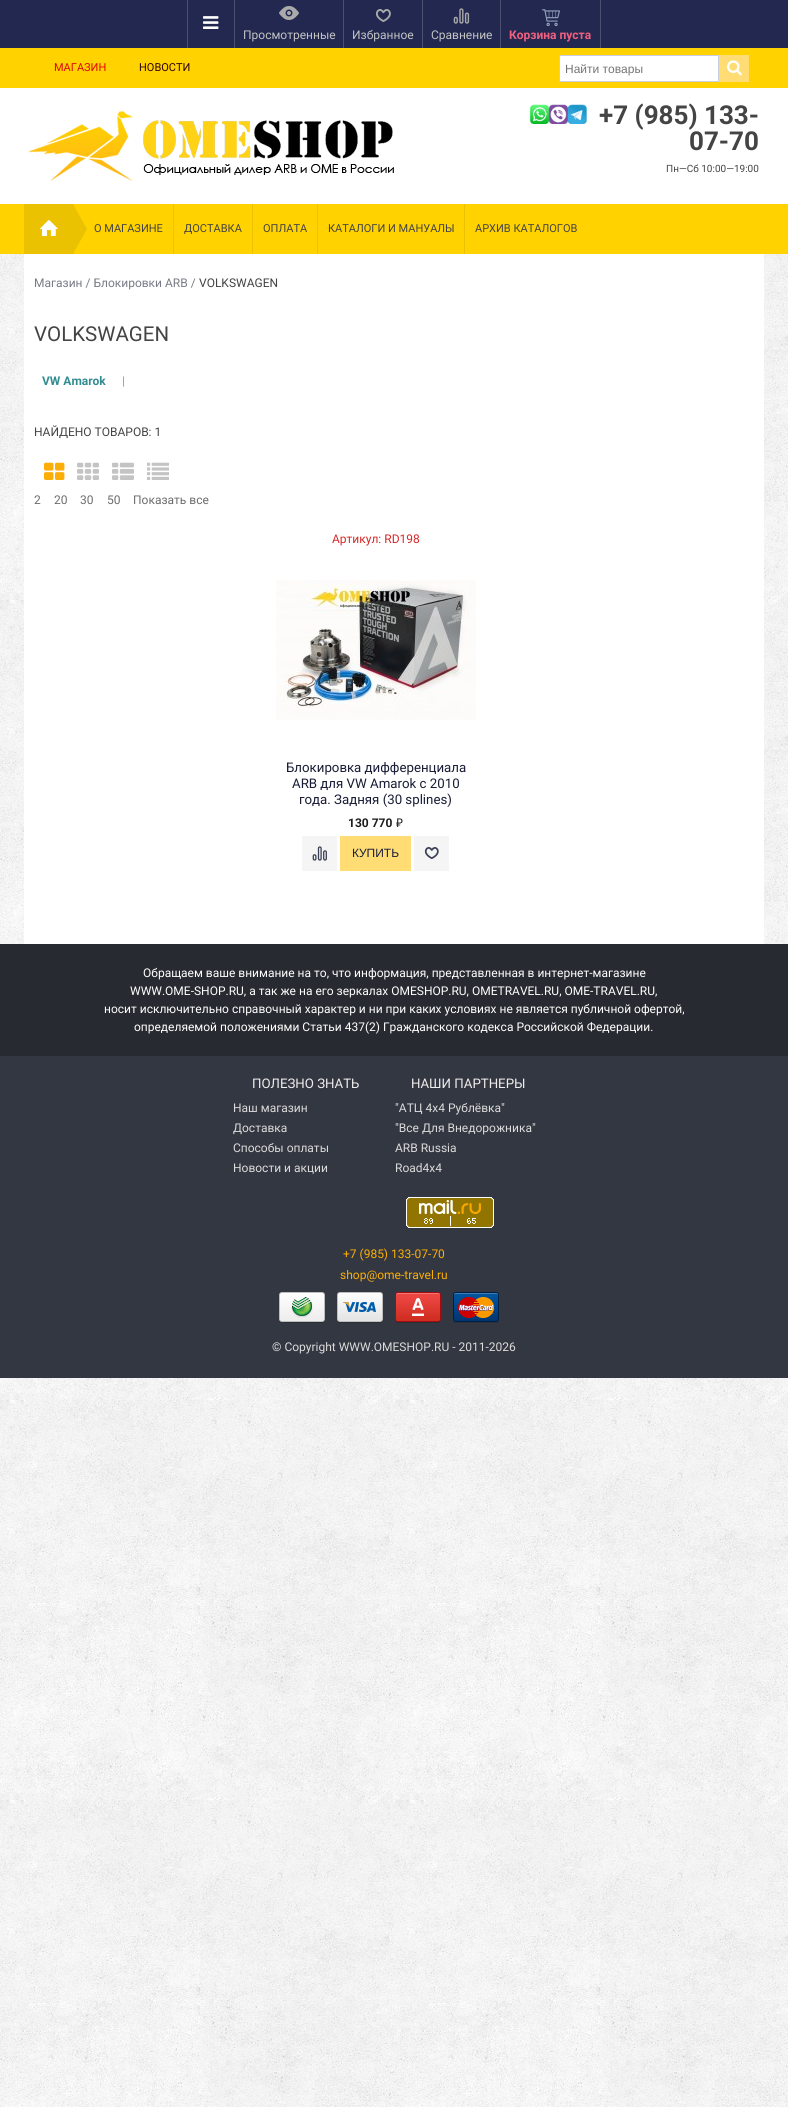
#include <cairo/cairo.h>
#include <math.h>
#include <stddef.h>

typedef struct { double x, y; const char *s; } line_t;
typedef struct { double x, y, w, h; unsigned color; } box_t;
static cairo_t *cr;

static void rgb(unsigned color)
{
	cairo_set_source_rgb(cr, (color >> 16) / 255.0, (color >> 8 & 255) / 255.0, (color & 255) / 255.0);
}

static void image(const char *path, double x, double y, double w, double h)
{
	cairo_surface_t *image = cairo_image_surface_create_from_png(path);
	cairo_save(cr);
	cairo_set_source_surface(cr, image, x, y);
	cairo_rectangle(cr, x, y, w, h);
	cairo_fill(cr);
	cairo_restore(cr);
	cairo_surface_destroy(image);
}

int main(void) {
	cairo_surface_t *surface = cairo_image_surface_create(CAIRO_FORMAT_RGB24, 788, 2107);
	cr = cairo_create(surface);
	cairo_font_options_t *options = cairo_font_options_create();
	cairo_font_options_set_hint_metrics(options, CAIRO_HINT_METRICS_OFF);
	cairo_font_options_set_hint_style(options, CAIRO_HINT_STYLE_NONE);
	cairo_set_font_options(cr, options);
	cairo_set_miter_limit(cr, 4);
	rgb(0xffffff);
	cairo_paint(cr);
	image("img/1.png", 0, 254, 788, 1853);
	rgb(0x22284f);
	cairo_rectangle(cr, 0, 0, 788, 48);
	cairo_fill(cr);
	rgb(0x4d5070);
	cairo_rectangle(cr, 187, 0, 1, 48);
	cairo_fill(cr);
	image("img/2.png", 203, 16, 16, 13);
	cairo_rectangle(cr, 234, 0, 1, 48);
	cairo_fill(cr);
	image("img/3.png", 279, 6, 20, 14);
	cairo_rectangle(cr, 343, 0, 1, 48);
	cairo_fill(cr);
	image("img/4.png", 375, 9, 16, 13);
	cairo_rectangle(cr, 422, 0, 1, 48);
	cairo_fill(cr);
	image("img/5.png", 453, 8, 17, 16);
	cairo_rectangle(cr, 600, 0, 1, 48);
	cairo_fill(cr);
	cairo_rectangle(cr, 500, 0, 1, 48);
	cairo_fill(cr);
	image("img/6.png", 542, 9, 18, 18);
	rgb(0xffd200);
	cairo_rectangle(cr, 0, 48, 788, 40);
	cairo_fill(cr);
	rgb(0xffffff);
	cairo_rectangle(cr, 559.5, 55.5, 159, 26);
	cairo_fill_preserve(cr);
	rgb(0xcacde0);
	cairo_set_line_width(cr, 1);
	cairo_stroke(cr);
	rgb(0xffdd74);
	cairo_rectangle(cr, 719, 55, 30, 27);
	cairo_fill(cr);
	image("img/7.png", 727, 60, 15, 16);
	image("img/8.png", 29, 111, 365, 70);
	image("img/9.png", 529, 104, 58, 20);
	rgb(0xffd200);
	cairo_rectangle(cr, 0, 204, 788, 50);
	cairo_fill(cr);
	rgb(0xebc202);
	cairo_rectangle(cr, 24, 204, 50, 50);
	cairo_fill(cr);
	image("img/10.png", 40, 220, 18, 16);
	cairo_new_path(cr);
	cairo_move_to(cr, 73, 254);
	cairo_line_to(cr, 73, 204);
	cairo_line_to(cr, 87, 229);
	cairo_close_path(cr);
	cairo_fill(cr);
	{
		static const box_t items[] = {
			{173, 204, 1, 50, 0xebc202},
			{252, 204, 1, 50, 0xebc202},
			{317, 204, 1, 50, 0xebc202},
			{464, 204, 1, 50, 0xebc202},
			{24, 254, 740, 690, 0xffffff},
		};
		for (size_t i = 0; i < sizeof items / sizeof *items; i++) {
			rgb(items[i].color);
			cairo_rectangle(cr, items[i].x, items[i].y, items[i].w, items[i].h);
			cairo_fill(cr);
		}
	}
	image("img/11.png", 44, 462, 21, 18);
	image("img/12.png", 77, 462, 22, 18);
	image("img/13.png", 112, 462, 22, 18);
	image("img/14.png", 147, 462, 22, 18);
	image("img/15.png", 276, 580, 200, 140);
	rgb(0xf5f5f5);
	cairo_rectangle(cr, 302, 836, 35, 35);
	cairo_fill(cr);
	image("img/16.png", 312, 846, 15, 15);
	rgb(0xffdd74);
	cairo_rectangle(cr, 340, 836, 71, 35);
	cairo_fill(cr);
	rgb(0xf5f5f5);
	cairo_rectangle(cr, 414, 836, 35, 35);
	cairo_fill(cr);
	image("img/17.png", 424, 847, 15, 13);
	rgb(0x272a30);
	cairo_rectangle(cr, 0, 944, 788, 112);
	cairo_fill(cr);
	rgb(0x333741);
	cairo_rectangle(cr, 0, 1056, 788, 322);
	cairo_fill(cr);
	image("img/18.png", 406, 1197, 88, 31);
	image("img/19.png", 279, 1292, 46, 31);
	image("img/20.png", 337, 1292, 46, 31);
	image("img/21.png", 395, 1292, 46, 31);
	image("img/22.png", 453, 1292, 46, 31);
	cairo_select_font_face(cr, "Roboto", CAIRO_FONT_SLANT_NORMAL, CAIRO_FONT_WEIGHT_NORMAL);
	cairo_set_font_size(cr, 12);
	rgb(0xc4c4c4);
	{
		static const line_t items[] = {
			{243, 39, "Просмотренные"},
			{352, 39, "Избранное"},
			{431, 39, "Сравнение"},
		};
		for (size_t i = 0; i < sizeof items / sizeof *items; i++) {
			cairo_move_to(cr, items[i].x, items[i].y);
			cairo_show_text(cr, items[i].s);
		}
	}
	cairo_select_font_face(cr, "Roboto", CAIRO_FONT_SLANT_NORMAL, CAIRO_FONT_WEIGHT_BOLD);
	rgb(0xf2607f);
	cairo_move_to(cr, 509, 39);
	cairo_show_text(cr, "Корзина пуста");
	cairo_select_font_face(cr, "Roboto", CAIRO_FONT_SLANT_NORMAL, CAIRO_FONT_WEIGHT_NORMAL);
	cairo_set_font_size(cr, 11);
	rgb(0xe00707);
	cairo_move_to(cr, 54, 71);
	cairo_show_text(cr, "МАГАЗИН");
	rgb(0x2f0404);
	cairo_move_to(cr, 139, 71);
	cairo_show_text(cr, "НОВОСТИ");
	cairo_select_font_face(cr, "Liberation Sans", CAIRO_FONT_SLANT_NORMAL, CAIRO_FONT_WEIGHT_NORMAL);
	cairo_set_font_size(cr, 12);
	rgb(0x757575);
	cairo_move_to(cr, 565, 73);
	cairo_show_text(cr, "Найти товары");
	cairo_select_font_face(cr, "Roboto", CAIRO_FONT_SLANT_NORMAL, CAIRO_FONT_WEIGHT_BOLD);
	cairo_set_font_size(cr, 26);
	rgb(0x444444);
	cairo_move_to(cr, 599, 124);
	cairo_show_text(cr, "+7 (985) 133-");
	cairo_move_to(cr, 689, 150);
	cairo_show_text(cr, "07-70");
	cairo_select_font_face(cr, "Roboto", CAIRO_FONT_SLANT_NORMAL, CAIRO_FONT_WEIGHT_NORMAL);
	cairo_set_font_size(cr, 10);
	cairo_move_to(cr, 666, 172);
	cairo_show_text(cr, "Пн—Сб 10:00—19:00");
	cairo_set_font_size(cr, 11);
	{
		static const line_t items[] = {
			{94, 232, "О МАГАЗИНЕ"},
			{184, 232, "ДОСТАВКА"},
			{263, 232, "ОПЛАТА"},
			{328, 232, "КАТАЛОГИ И МАНУАЛЫ"},
			{475, 232, "АРХИВ КАТАЛОГОВ"},
		};
		for (size_t i = 0; i < sizeof items / sizeof *items; i++) {
			cairo_move_to(cr, items[i].x, items[i].y);
			cairo_show_text(cr, items[i].s);
		}
	}
	cairo_set_font_size(cr, 12);
	rgb(0x787b85);
	cairo_move_to(cr, 34, 287);
	cairo_show_text(cr, "Магазин / Блокировки ARB /");
	rgb(0x444444);
	cairo_move_to(cr, 199, 287);
	cairo_show_text(cr, "VOLKSWAGEN");
	cairo_set_font_size(cr, 20.5);
	cairo_move_to(cr, 34, 341);
	cairo_show_text(cr, "VOLKSWAGEN");
	cairo_select_font_face(cr, "Roboto", CAIRO_FONT_SLANT_NORMAL, CAIRO_FONT_WEIGHT_BOLD);
	cairo_set_font_size(cr, 12);
	rgb(0x318c90);
	cairo_move_to(cr, 42, 385);
	cairo_show_text(cr, "VW Amarok");
	cairo_select_font_face(cr, "Roboto", CAIRO_FONT_SLANT_NORMAL, CAIRO_FONT_WEIGHT_NORMAL);
	rgb(0x999999);
	cairo_move_to(cr, 122, 385);
	cairo_show_text(cr, "|");
	rgb(0x444444);
	cairo_move_to(cr, 34, 436);
	cairo_show_text(cr, "НАЙДЕНО ТОВАРОВ: 1");
	rgb(0x6c6c6c);
	{
		static const line_t items[] = {
			{34, 504, "2"},
			{54, 504, "20"},
			{80, 504, "30"},
			{107, 504, "50"},
			{133, 504, "Показать все"},
		};
		for (size_t i = 0; i < sizeof items / sizeof *items; i++) {
			cairo_move_to(cr, items[i].x, items[i].y);
			cairo_show_text(cr, items[i].s);
		}
	}
	rgb(0xd62828);
	cairo_move_to(cr, 332, 543);
	cairo_show_text(cr, "Артикул: RD198");
	cairo_set_font_size(cr, 13.25);
	rgb(0x191c36);
	{
		static const line_t items[] = {
			{286, 772, "Блокировка дифференциала"},
			{292, 788, "ARB для VW Amarok с 2010"},
			{299, 804, "года. Задняя (30 splines)"},
		};
		for (size_t i = 0; i < sizeof items / sizeof *items; i++) {
			cairo_move_to(cr, items[i].x, items[i].y);
			cairo_show_text(cr, items[i].s);
		}
	}
	cairo_select_font_face(cr, "Roboto", CAIRO_FONT_SLANT_NORMAL, CAIRO_FONT_WEIGHT_BOLD);
	cairo_set_font_size(cr, 12);
	rgb(0x1d1d1d);
	cairo_move_to(cr, 348, 827);
	cairo_show_text(cr, "130 770");
	cairo_select_font_face(cr, "Noto Sans", CAIRO_FONT_SLANT_NORMAL, CAIRO_FONT_WEIGHT_NORMAL);
	cairo_move_to(cr, 396, 827);
	cairo_show_text(cr, "₽");
	cairo_select_font_face(cr, "Liberation Sans", CAIRO_FONT_SLANT_NORMAL, CAIRO_FONT_WEIGHT_NORMAL);
	rgb(0x191c36);
	cairo_move_to(cr, 352, 857);
	cairo_show_text(cr, "КУПИТЬ");
	cairo_select_font_face(cr, "Roboto", CAIRO_FONT_SLANT_NORMAL, CAIRO_FONT_WEIGHT_NORMAL);
	rgb(0xffffff);
	{
		static const line_t items[] = {
			{143, 977, "Обращаем ваше внимание на то, что информация, представленная в интернет-магазине"},
			{130, 995, "WWW.OME-SHOP.RU, а так же на его зеркалах OMESHOP.RU, OMETRAVEL.RU, OME-TRAVEL.RU,"},
			{104, 1013, "носит исключительно справочный характер и ни при каких условиях не является публичной офертой,"},
			{134, 1031, "определяемой положениями Статьи 437(2) Гражданского кодекса Pоссийской Федерации."},
		};
		for (size_t i = 0; i < sizeof items / sizeof *items; i++) {
			cairo_move_to(cr, items[i].x, items[i].y);
			cairo_show_text(cr, items[i].s);
		}
	}
	cairo_set_font_size(cr, 13.25);
	rgb(0xf0eded);
	cairo_move_to(cr, 252, 1088);
	cairo_show_text(cr, "ПОЛЕЗНО ЗНАТЬ");
	cairo_set_font_size(cr, 12);
	rgb(0xdcdbdb);
	{
		static const line_t items[] = {
			{233, 1112, "Наш магазин"},
			{233, 1132, "Доставка"},
			{233, 1152, "Способы оплаты"},
			{233, 1172, "Новости и акции"},
		};
		for (size_t i = 0; i < sizeof items / sizeof *items; i++) {
			cairo_move_to(cr, items[i].x, items[i].y);
			cairo_show_text(cr, items[i].s);
		}
	}
	cairo_set_font_size(cr, 13.25);
	rgb(0xf0eded);
	cairo_move_to(cr, 411, 1088);
	cairo_show_text(cr, "НАШИ ПАРТНЕРЫ");
	cairo_set_font_size(cr, 12);
	rgb(0xdcdbdb);
	{
		static const line_t items[] = {
			{395, 1112, "\"АТЦ 4х4 Рублёвка\""},
			{395, 1132, "\"Все Для Внедорожника\""},
			{395, 1152, "ARB Russia"},
			{395, 1172, "Road4x4"},
		};
		for (size_t i = 0; i < sizeof items / sizeof *items; i++) {
			cairo_move_to(cr, items[i].x, items[i].y);
			cairo_show_text(cr, items[i].s);
		}
	}
	rgb(0xfbae08);
	cairo_move_to(cr, 343, 1258);
	cairo_show_text(cr, "+7 (985) 133-07-70");
	cairo_move_to(cr, 340, 1279);
	cairo_show_text(cr, "shop@ome-travel.ru");
	rgb(0xdcdbdb);
	cairo_move_to(cr, 272, 1351);
	cairo_show_text(cr, "© Copyright WWW.OMESHOP.RU - 2011-2026");
	cairo_surface_write_to_png(surface, "page.png");
	cairo_font_options_destroy(options);
	cairo_destroy(cr);
	cairo_surface_destroy(surface);
	return 0;
}
